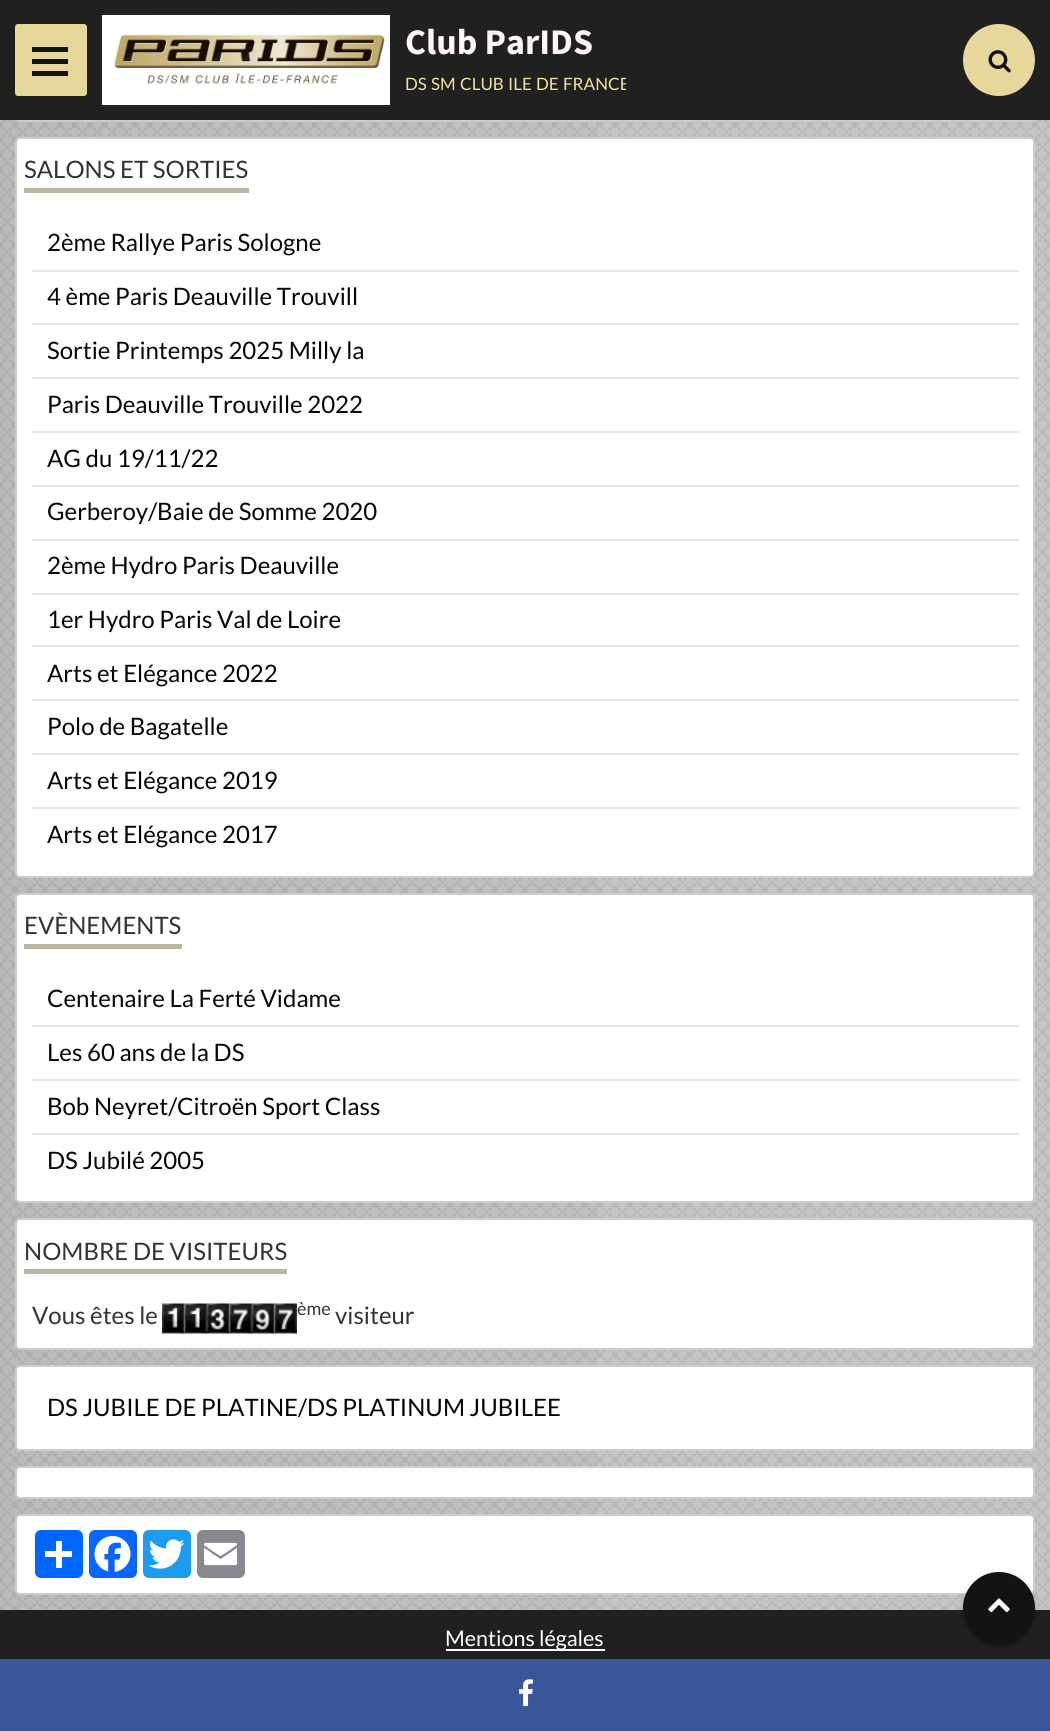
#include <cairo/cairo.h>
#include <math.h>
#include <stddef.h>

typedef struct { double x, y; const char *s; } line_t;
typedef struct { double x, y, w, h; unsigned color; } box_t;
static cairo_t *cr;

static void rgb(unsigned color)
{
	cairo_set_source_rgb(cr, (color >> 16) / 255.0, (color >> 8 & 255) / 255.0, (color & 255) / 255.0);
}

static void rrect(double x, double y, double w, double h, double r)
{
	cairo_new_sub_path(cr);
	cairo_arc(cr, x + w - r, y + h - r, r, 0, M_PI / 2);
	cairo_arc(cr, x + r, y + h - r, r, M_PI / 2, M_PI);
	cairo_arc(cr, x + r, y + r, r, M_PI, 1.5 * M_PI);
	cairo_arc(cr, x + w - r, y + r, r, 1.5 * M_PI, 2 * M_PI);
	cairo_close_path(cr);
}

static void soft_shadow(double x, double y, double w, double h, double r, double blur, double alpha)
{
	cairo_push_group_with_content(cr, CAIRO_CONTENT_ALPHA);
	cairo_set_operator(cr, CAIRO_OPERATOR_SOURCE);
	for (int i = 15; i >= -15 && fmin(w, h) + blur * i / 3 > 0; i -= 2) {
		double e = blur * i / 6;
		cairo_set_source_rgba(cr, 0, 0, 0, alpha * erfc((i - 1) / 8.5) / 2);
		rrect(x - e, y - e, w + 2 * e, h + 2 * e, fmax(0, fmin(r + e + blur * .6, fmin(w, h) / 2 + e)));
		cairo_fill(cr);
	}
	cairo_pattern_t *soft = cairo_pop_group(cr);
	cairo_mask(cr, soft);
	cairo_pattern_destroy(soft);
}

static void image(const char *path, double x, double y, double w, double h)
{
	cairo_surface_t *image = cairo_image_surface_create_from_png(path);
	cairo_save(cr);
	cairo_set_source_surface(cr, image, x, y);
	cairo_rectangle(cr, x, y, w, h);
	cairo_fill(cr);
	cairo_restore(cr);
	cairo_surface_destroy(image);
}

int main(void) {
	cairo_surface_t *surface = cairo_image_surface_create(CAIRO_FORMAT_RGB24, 1050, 1731);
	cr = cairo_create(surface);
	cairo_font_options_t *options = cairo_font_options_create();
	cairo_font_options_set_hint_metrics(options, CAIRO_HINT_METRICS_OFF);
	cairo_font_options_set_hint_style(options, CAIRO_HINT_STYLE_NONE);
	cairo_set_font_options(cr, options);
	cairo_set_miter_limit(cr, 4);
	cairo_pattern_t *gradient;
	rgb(0x202020);
	cairo_paint(cr);
	rgb(0xc5c5c5);
	cairo_rectangle(cr, 0, 120, 1050, 1490);
	cairo_fill(cr);
	image("img/3.png", 0, 120, 1050, 1490);
	gradient = cairo_pattern_create_linear(0, 155, 1050, 154);
	cairo_pattern_add_color_stop_rgba(gradient, 0, 0, 0, 0, 0.05);
	cairo_pattern_add_color_stop_rgba(gradient, 1, 0, 0, 0, 0);
	cairo_set_source(cr, gradient);
	cairo_pattern_destroy(gradient);
	cairo_rectangle(cr, 0, 120, 598, 1490);
	cairo_fill(cr);
	rgb(0xffffff);
	rrect(15, -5, 1020, 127, 5);
	cairo_fill(cr);
	rrect(16, -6, 1018, 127, 4);
	cairo_set_source_rgba(cr, 0, 0, 0, 0.2);
	cairo_stroke(cr);
	rgb(0x202020);
	cairo_rectangle(cr, 15, 0, 1020, 120);
	cairo_fill(cr);
	rgb(0xe6d79c);
	rrect(15, 24, 72, 72, 3);
	cairo_fill(cr);
	{
		static const box_t items[] = {
			{32, 59, 36, 5, 0x121313},
			{32, 47, 36, 5, 0x121313},
			{32, 71, 36, 5, 0x121313},
		};
		for (size_t i = 0; i < sizeof items / sizeof *items; i++) {
			rgb(items[i].color);
			cairo_rectangle(cr, items[i].x, items[i].y, items[i].w, items[i].h);
			cairo_fill(cr);
		}
	}
	image("img/1.png", 102, 15, 288, 90);
	rgb(0xe6d79c);
	cairo_arc(cr, 999, 60, 36, 0, 2 * M_PI);
	cairo_fill(cr);
	image("img/2.png", 988, 50, 23, 23);
	rgb(0xffffff);
	rrect(15, 137, 1020, 741, 5);
	cairo_fill(cr);
	rrect(16, 138, 1018, 739, 4);
	cairo_set_source_rgba(cr, 0, 0, 0, 0.2);
	cairo_stroke(cr);
	{
		static const box_t items[] = {
			{24, 188, 225, 5, 0xbbb7a4},
			{32, 270, 987, 2, 0xe6e6e6},
			{32, 323, 987, 2, 0xe6e6e6},
			{32, 377, 987, 2, 0xe6e6e6},
			{32, 431, 987, 2, 0xe6e6e6},
			{32, 485, 987, 2, 0xe6e6e6},
			{32, 539, 987, 2, 0xe6e6e6},
			{32, 593, 987, 2, 0xe6e6e6},
			{32, 645, 987, 2, 0xe6e6e6},
			{32, 699, 987, 2, 0xe6e6e6},
			{32, 753, 987, 2, 0xe6e6e6},
			{32, 807, 987, 2, 0xe6e6e6},
		};
		for (size_t i = 0; i < sizeof items / sizeof *items; i++) {
			rgb(items[i].color);
			cairo_rectangle(cr, items[i].x, items[i].y, items[i].w, items[i].h);
			cairo_fill(cr);
		}
	}
	rgb(0xffffff);
	rrect(15, 893, 1020, 310, 5);
	cairo_fill(cr);
	rrect(16, 894, 1018, 308, 4);
	cairo_set_source_rgba(cr, 0, 0, 0, 0.2);
	cairo_stroke(cr);
	{
		static const box_t items[] = {
			{24, 944, 158, 5, 0xbbb7a4},
			{32, 1025, 987, 2, 0xe6e6e6},
			{32, 1079, 987, 2, 0xe6e6e6},
			{32, 1133, 987, 2, 0xe6e6e6},
		};
		for (size_t i = 0; i < sizeof items / sizeof *items; i++) {
			rgb(items[i].color);
			cairo_rectangle(cr, items[i].x, items[i].y, items[i].w, items[i].h);
			cairo_fill(cr);
		}
	}
	rgb(0xffffff);
	rrect(15, 1218, 1020, 132, 5);
	cairo_fill(cr);
	rrect(16, 1219, 1018, 130, 4);
	cairo_set_source_rgba(cr, 0, 0, 0, 0.2);
	cairo_stroke(cr);
	rgb(0xbbb7a4);
	cairo_rectangle(cr, 24, 1269, 263, 5);
	cairo_fill(cr);
	image("img/4.png", 162, 1303, 23, 31);
	image("img/5.png", 184, 1303, 23, 31);
	image("img/6.png", 207, 1303, 23, 31);
	image("img/7.png", 229, 1303, 23, 31);
	image("img/8.png", 252, 1303, 23, 31);
	image("img/7.png", 274, 1303, 23, 31);
	rgb(0xffffff);
	rrect(15, 1365, 1020, 86, 5);
	cairo_fill(cr);
	rrect(16, 1366, 1018, 84, 4);
	cairo_set_source_rgba(cr, 0, 0, 0, 0.2);
	cairo_stroke(cr);
	rgb(0xffffff);
	rrect(15, 1466, 1020, 33, 5);
	cairo_fill(cr);
	rrect(16, 1467, 1018, 31, 4);
	cairo_set_source_rgba(cr, 0, 0, 0, 0.2);
	cairo_stroke(cr);
	rgb(0xffffff);
	rrect(15, 1514, 1020, 81, 5);
	cairo_fill(cr);
	rrect(16, 1515, 1018, 79, 4);
	cairo_set_source_rgba(cr, 0, 0, 0, 0.2);
	cairo_stroke(cr);
	rgb(0x0166ff);
	rrect(35, 1530, 48, 48, 6);
	cairo_fill(cr);
	rgb(0xffffff);
	cairo_rectangle(cr, 56, 1541, 6, 27);
	cairo_fill(cr);
	cairo_rectangle(cr, 45, 1551, 27, 6);
	cairo_fill(cr);
	rgb(0x0866ff);
	rrect(89, 1530, 48, 48, 6);
	cairo_fill(cr);
	image("img/9.png", 94, 1536, 37, 36);
	rgb(0x1d9bf0);
	rrect(143, 1530, 48, 48, 6);
	cairo_fill(cr);
	image("img/10.png", 148, 1539, 37, 30);
	rgb(0x888990);
	rrect(197, 1530, 48, 48, 6);
	cairo_fill(cr);
	image("img/11.png", 204, 1542, 33, 24);
	rgb(0xffffff);
	cairo_rectangle(cr, 446, 1649, 159, 2);
	cairo_fill(cr);
	rgb(0x000000);
	soft_shadow(963, 1574, 72, 72, 36, 4, 0.12);
	soft_shadow(966, 1580, 66, 66, 33, 1, 0.2);
	soft_shadow(963, 1575, 72, 72, 36, 1.5, 0.14);
	rgb(0x131312);
	cairo_arc(cr, 999, 1608, 36, 0, 2 * M_PI);
	cairo_fill(cr);
	image("img/12.png", 988, 1598, 22, 15);
	rgb(0x385699);
	cairo_rectangle(cr, 0, 1659, 1050, 72);
	cairo_fill(cr);
	image("img/13.png", 519, 1679, 14, 28);
	cairo_select_font_face(cr, "Source Sans Pro", CAIRO_FONT_SLANT_NORMAL, CAIRO_FONT_WEIGHT_BOLD);
	cairo_set_font_size(cr, 36);
	rgb(0xfff5f5);
	cairo_move_to(cr, 405, 54);
	cairo_show_text(cr, "Club ParIDS");
	cairo_select_font_face(cr, "Lato", CAIRO_FONT_SLANT_NORMAL, CAIRO_FONT_WEIGHT_NORMAL);
	cairo_set_font_size(cr, 17);
	rgb(0xf2e2a1);
	{
		static const line_t items[] = {
			{405, 90, "DS"},
			{431, 90, "SM"},
			{460, 90, "CLUB"},
			{508, 90, "ILE"},
			{536, 90, "DE"},
		};
		for (size_t i = 0; i < sizeof items / sizeof *items; i++) {
			cairo_move_to(cr, items[i].x, items[i].y);
			cairo_show_text(cr, items[i].s);
		}
	}
	cairo_save(cr);
	cairo_rectangle(cr, 405, 65, 221, 34);
	cairo_clip(cr);
	cairo_move_to(cr, 563, 90);
	cairo_show_text(cr, "FRANCE");
	cairo_restore(cr);
	cairo_set_font_size(cr, 24);
	rgb(0x333333);
	cairo_move_to(cr, 24, 178);
	cairo_show_text(cr, "SALONS ET SORTIES");
	rgb(0x060606);
	{
		static const line_t items[] = {
			{47, 251, "2ème Rallye Paris Sologne"},
			{47, 305, "4 ème Paris Deauville Trouvill"},
			{47, 359, "Sortie Printemps 2025 Milly la"},
			{47, 413, "Paris Deauville Trouville 2022"},
			{47, 467, "AG du 19/11/22"},
			{47, 520, "Gerberoy/Baie de Somme 2020"},
			{47, 574, "2ème Hydro Paris Deauville"},
			{47, 628, "1er Hydro Paris Val de Loire"},
			{47, 682, "Arts et Elégance 2022"},
			{47, 735, "Polo de Bagatelle"},
			{47, 789, "Arts et Elégance 2019"},
			{47, 843, "Arts et Elégance 2017"},
		};
		for (size_t i = 0; i < sizeof items / sizeof *items; i++) {
			cairo_move_to(cr, items[i].x, items[i].y);
			cairo_show_text(cr, items[i].s);
		}
	}
	rgb(0x333333);
	cairo_move_to(cr, 24, 934);
	cairo_show_text(cr, "EVÈNEMENTS");
	rgb(0x060606);
	{
		static const line_t items[] = {
			{47, 1007, "Centenaire La Ferté Vidame"},
			{47, 1061, "Les 60 ans de la DS"},
			{47, 1115, "Bob Neyret/Citroën Sport Class"},
			{47, 1169, "DS Jubilé 2005"},
		};
		for (size_t i = 0; i < sizeof items / sizeof *items; i++) {
			cairo_move_to(cr, items[i].x, items[i].y);
			cairo_show_text(cr, items[i].s);
		}
	}
	rgb(0x333333);
	cairo_move_to(cr, 24, 1260);
	cairo_show_text(cr, "NOMBRE DE VISITEURS");
	cairo_move_to(cr, 32, 1324);
	cairo_show_text(cr, "Vous êtes le");
	cairo_set_font_size(cr, 18);
	cairo_move_to(cr, 297, 1315);
	cairo_show_text(cr, "ème");
	cairo_set_font_size(cr, 24);
	cairo_move_to(cr, 335, 1324);
	cairo_show_text(cr, "visiteur");
	rgb(0x060606);
	cairo_move_to(cr, 47, 1416);
	cairo_show_text(cr, "DS JUBILE DE PLATINE/DS PLATINUM JUBILEE");
	cairo_set_font_size(cr, 21.5);
	rgb(0xffffff);
	cairo_move_to(cr, 445, 1646);
	cairo_show_text(cr, "Mentions légales");
	cairo_surface_write_to_png(surface, "page.png");
	cairo_font_options_destroy(options);
	cairo_destroy(cr);
	cairo_surface_destroy(surface);
	return 0;
}
